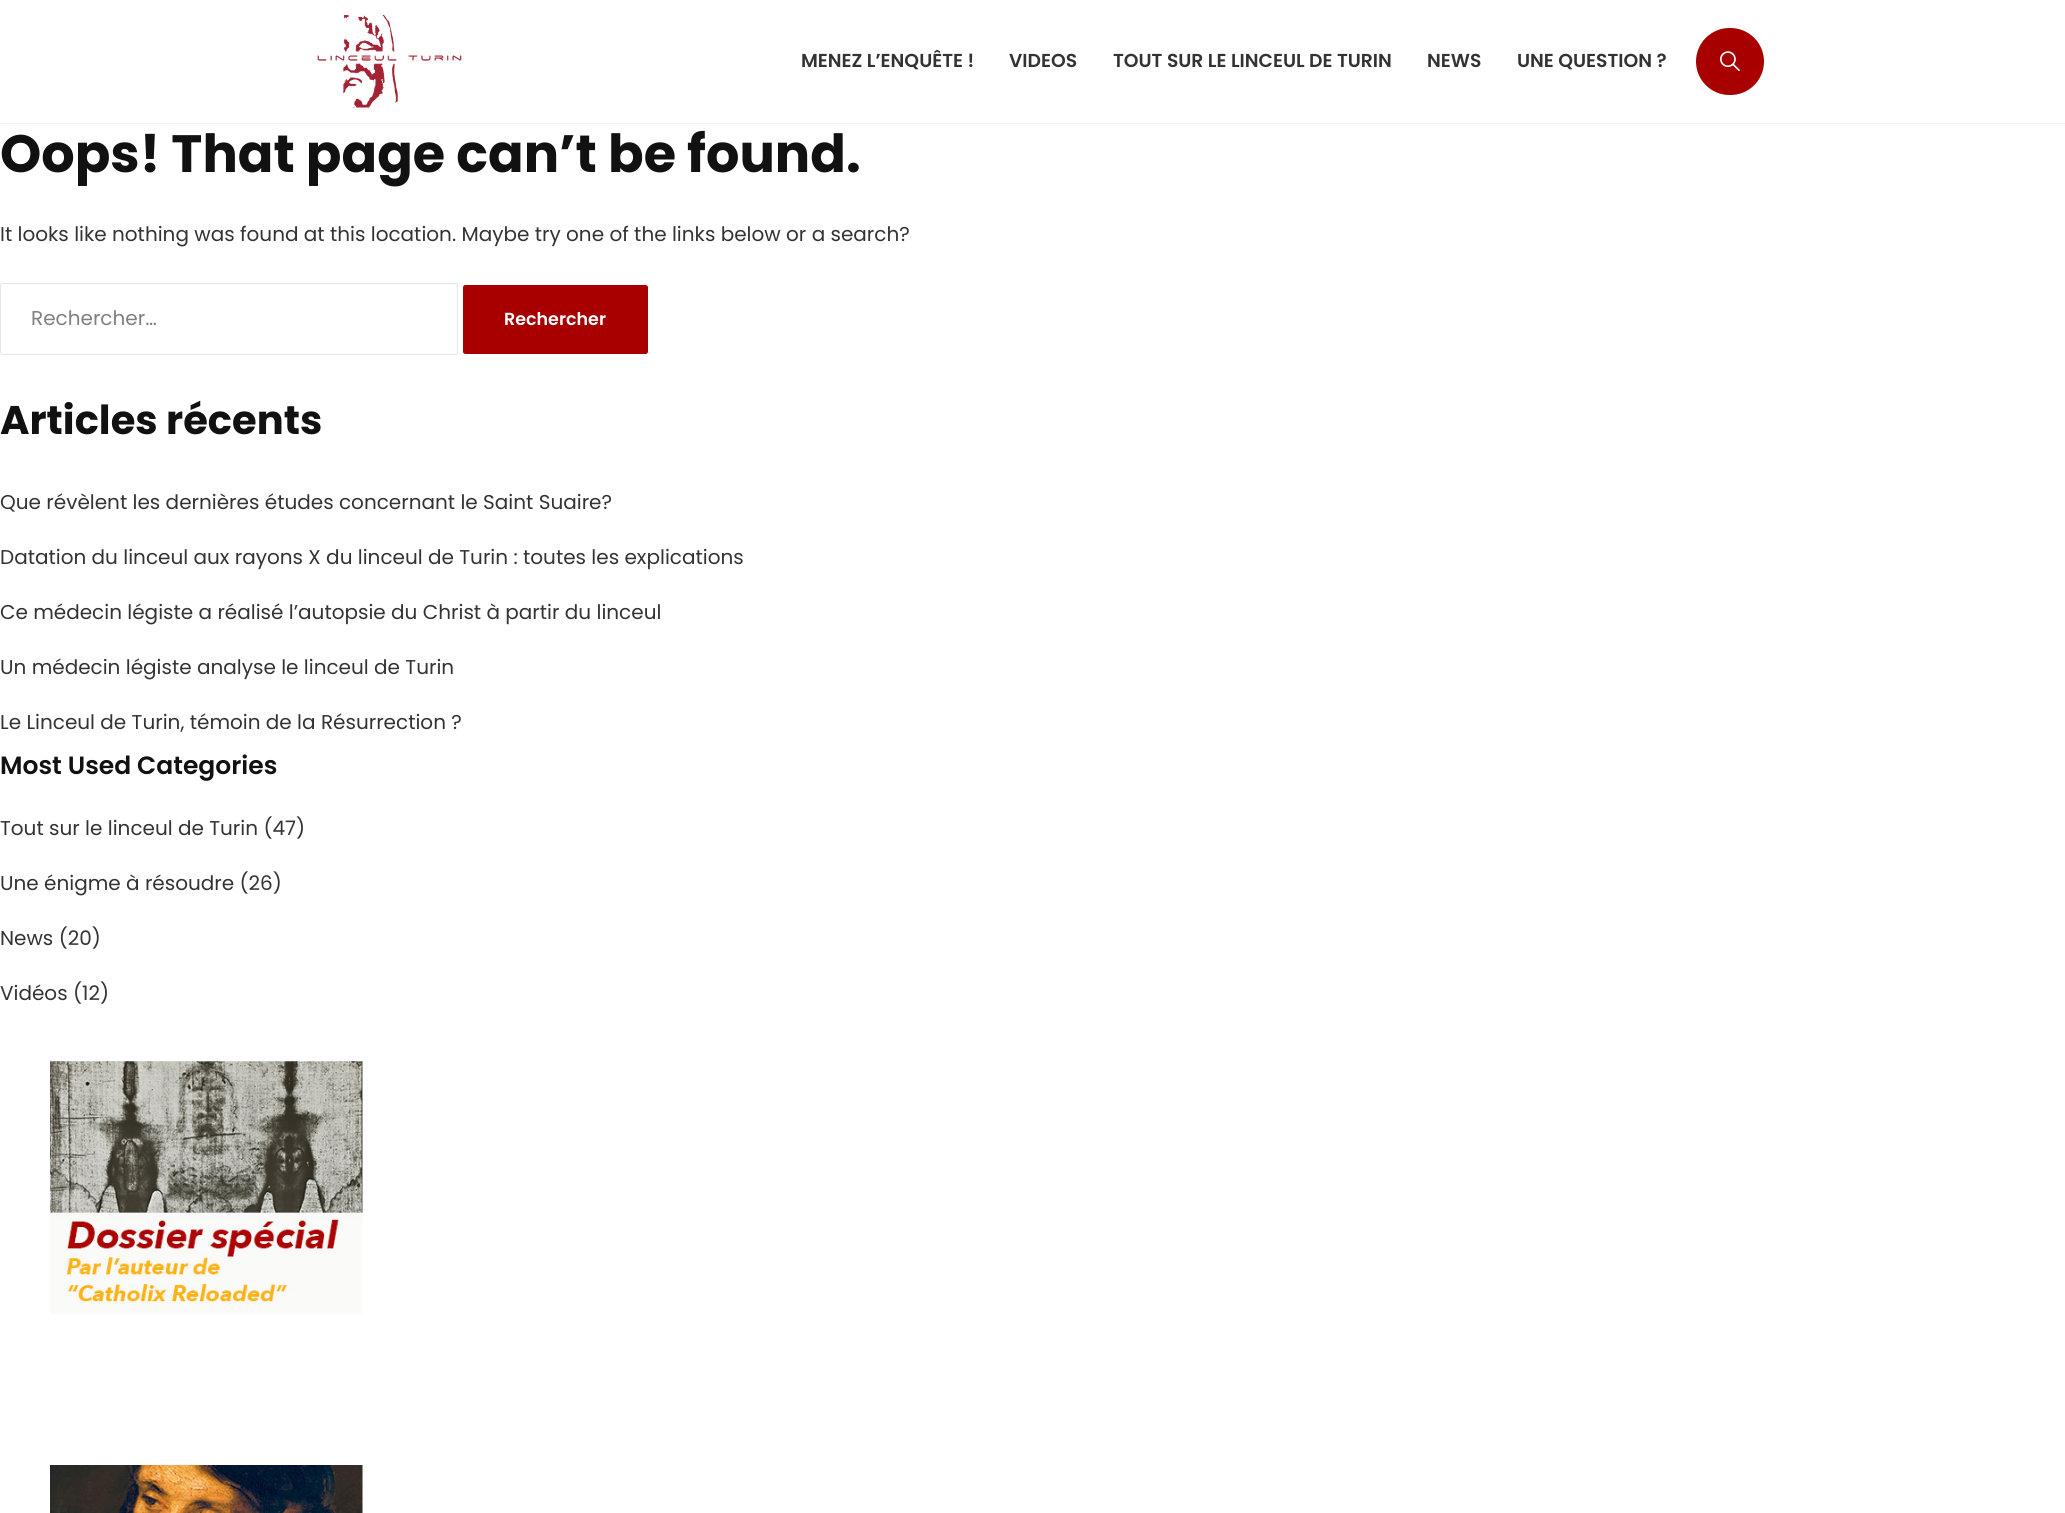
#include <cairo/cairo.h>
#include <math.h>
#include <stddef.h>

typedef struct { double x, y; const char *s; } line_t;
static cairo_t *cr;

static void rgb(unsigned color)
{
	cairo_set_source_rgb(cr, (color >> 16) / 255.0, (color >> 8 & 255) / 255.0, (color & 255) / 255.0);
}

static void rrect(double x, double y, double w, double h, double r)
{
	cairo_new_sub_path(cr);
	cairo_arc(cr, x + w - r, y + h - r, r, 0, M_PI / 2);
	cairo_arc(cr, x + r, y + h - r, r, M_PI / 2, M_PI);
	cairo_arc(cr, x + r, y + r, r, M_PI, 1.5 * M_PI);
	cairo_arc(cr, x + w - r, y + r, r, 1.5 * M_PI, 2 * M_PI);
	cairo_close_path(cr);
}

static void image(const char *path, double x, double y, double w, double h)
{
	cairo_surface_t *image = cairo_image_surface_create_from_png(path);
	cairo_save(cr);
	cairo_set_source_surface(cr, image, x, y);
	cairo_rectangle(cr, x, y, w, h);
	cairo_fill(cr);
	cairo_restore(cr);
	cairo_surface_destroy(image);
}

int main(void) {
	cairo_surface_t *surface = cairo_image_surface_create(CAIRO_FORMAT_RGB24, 2065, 1513);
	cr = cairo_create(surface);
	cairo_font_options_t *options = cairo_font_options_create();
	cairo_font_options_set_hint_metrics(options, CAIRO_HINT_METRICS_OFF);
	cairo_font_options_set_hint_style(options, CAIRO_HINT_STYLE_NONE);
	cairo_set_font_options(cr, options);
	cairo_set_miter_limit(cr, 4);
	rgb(0xffffff);
	cairo_paint(cr);
	rgb(0xf2f2f2);
	cairo_rectangle(cr, 0, 123, 2065, 1);
	cairo_fill(cr);
	image("img/1.png", 317, 15, 145, 93);
	rgb(0xa80000);
	rrect(1696, 28, 68, 67, 33.5);
	cairo_fill(cr);
	image("img/2.png", 1720, 51, 20, 20);
	rrect(0.5, 283.5, 457, 71, 2);
	rgb(0xe6e6e6);
	cairo_set_line_width(cr, 1);
	cairo_stroke(cr);
	rgb(0xa80000);
	rrect(463.5, 285.5, 184, 68, 2);
	cairo_fill_preserve(cr);
	cairo_stroke(cr);
	image("img/3.png", 50, 1061, 313, 253);
	image("img/4.png", 50, 1465, 313, 48);
	cairo_select_font_face(cr, "Poppins SemiBold", CAIRO_FONT_SLANT_NORMAL, CAIRO_FONT_WEIGHT_NORMAL);
	cairo_set_font_size(cr, 18.75);
	rgb(0x333333);
	{
		static const line_t items[] = {
			{801, 67, "MENEZ L’ENQUÊTE !"},
			{1009, 67, "VIDEOS"},
			{1113, 67, "TOUT SUR LE LINCEUL DE TURIN"},
			{1427, 67, "NEWS"},
			{1517, 67, "UNE QUESTION ?"},
		};
		for (size_t i = 0; i < sizeof items / sizeof *items; i++) {
			cairo_move_to(cr, items[i].x, items[i].y);
			cairo_show_text(cr, items[i].s);
		}
	}
	cairo_select_font_face(cr, "Poppins", CAIRO_FONT_SLANT_NORMAL, CAIRO_FONT_WEIGHT_BOLD);
	cairo_set_font_size(cr, 52.5);
	rgb(0x111111);
	cairo_move_to(cr, 0, 172);
	cairo_show_text(cr, "Oops! That page can’t be found.");
	cairo_select_font_face(cr, "Poppins", CAIRO_FONT_SLANT_NORMAL, CAIRO_FONT_WEIGHT_NORMAL);
	cairo_set_font_size(cr, 20);
	rgb(0x333333);
	cairo_move_to(cr, 0, 241);
	cairo_show_text(cr, "It looks like nothing was found at this location. Maybe try one of the links below or a search?");
	rgb(0x808080);
	cairo_move_to(cr, 31, 325);
	cairo_show_text(cr, "Rechercher…");
	cairo_select_font_face(cr, "Poppins SemiBold", CAIRO_FONT_SLANT_NORMAL, CAIRO_FONT_WEIGHT_NORMAL);
	cairo_set_font_size(cr, 17.5);
	rgb(0xffffff);
	cairo_move_to(cr, 504, 325);
	cairo_show_text(cr, "Rechercher");
	cairo_select_font_face(cr, "Poppins", CAIRO_FONT_SLANT_NORMAL, CAIRO_FONT_WEIGHT_BOLD);
	cairo_set_font_size(cr, 40);
	rgb(0x111111);
	cairo_move_to(cr, 0, 434);
	cairo_show_text(cr, "Articles récents");
	cairo_select_font_face(cr, "Poppins", CAIRO_FONT_SLANT_NORMAL, CAIRO_FONT_WEIGHT_NORMAL);
	cairo_set_font_size(cr, 20);
	rgb(0x333333);
	{
		static const line_t items[] = {
			{0, 509, "Que révèlent les dernières études concernant le Saint Suaire?"},
			{0, 564, "Datation du linceul aux rayons X du linceul de Turin : toutes les explications"},
			{0, 619, "Ce médecin légiste a réalisé l’autopsie du Christ à partir du linceul"},
			{0, 674, "Un médecin légiste analyse le linceul de Turin"},
			{0, 729, "Le Linceul de Turin, témoin de la Résurrection ?"},
		};
		for (size_t i = 0; i < sizeof items / sizeof *items; i++) {
			cairo_move_to(cr, items[i].x, items[i].y);
			cairo_show_text(cr, items[i].s);
		}
	}
	cairo_select_font_face(cr, "Poppins SemiBold", CAIRO_FONT_SLANT_NORMAL, CAIRO_FONT_WEIGHT_NORMAL);
	cairo_set_font_size(cr, 25);
	rgb(0x111111);
	cairo_move_to(cr, 0, 774);
	cairo_show_text(cr, "Most Used Categories");
	cairo_select_font_face(cr, "Poppins", CAIRO_FONT_SLANT_NORMAL, CAIRO_FONT_WEIGHT_NORMAL);
	cairo_set_font_size(cr, 20);
	rgb(0x333333);
	{
		static const line_t items[] = {
			{0, 835, "Tout sur le linceul de Turin (47)"},
			{0, 890, "Une énigme à résoudre (26)"},
			{0, 945, "News (20)"},
			{0, 1000, "Vidéos (12)"},
		};
		for (size_t i = 0; i < sizeof items / sizeof *items; i++) {
			cairo_move_to(cr, items[i].x, items[i].y);
			cairo_show_text(cr, items[i].s);
		}
	}
	cairo_surface_write_to_png(surface, "page.png");
	cairo_font_options_destroy(options);
	cairo_destroy(cr);
	cairo_surface_destroy(surface);
	return 0;
}
